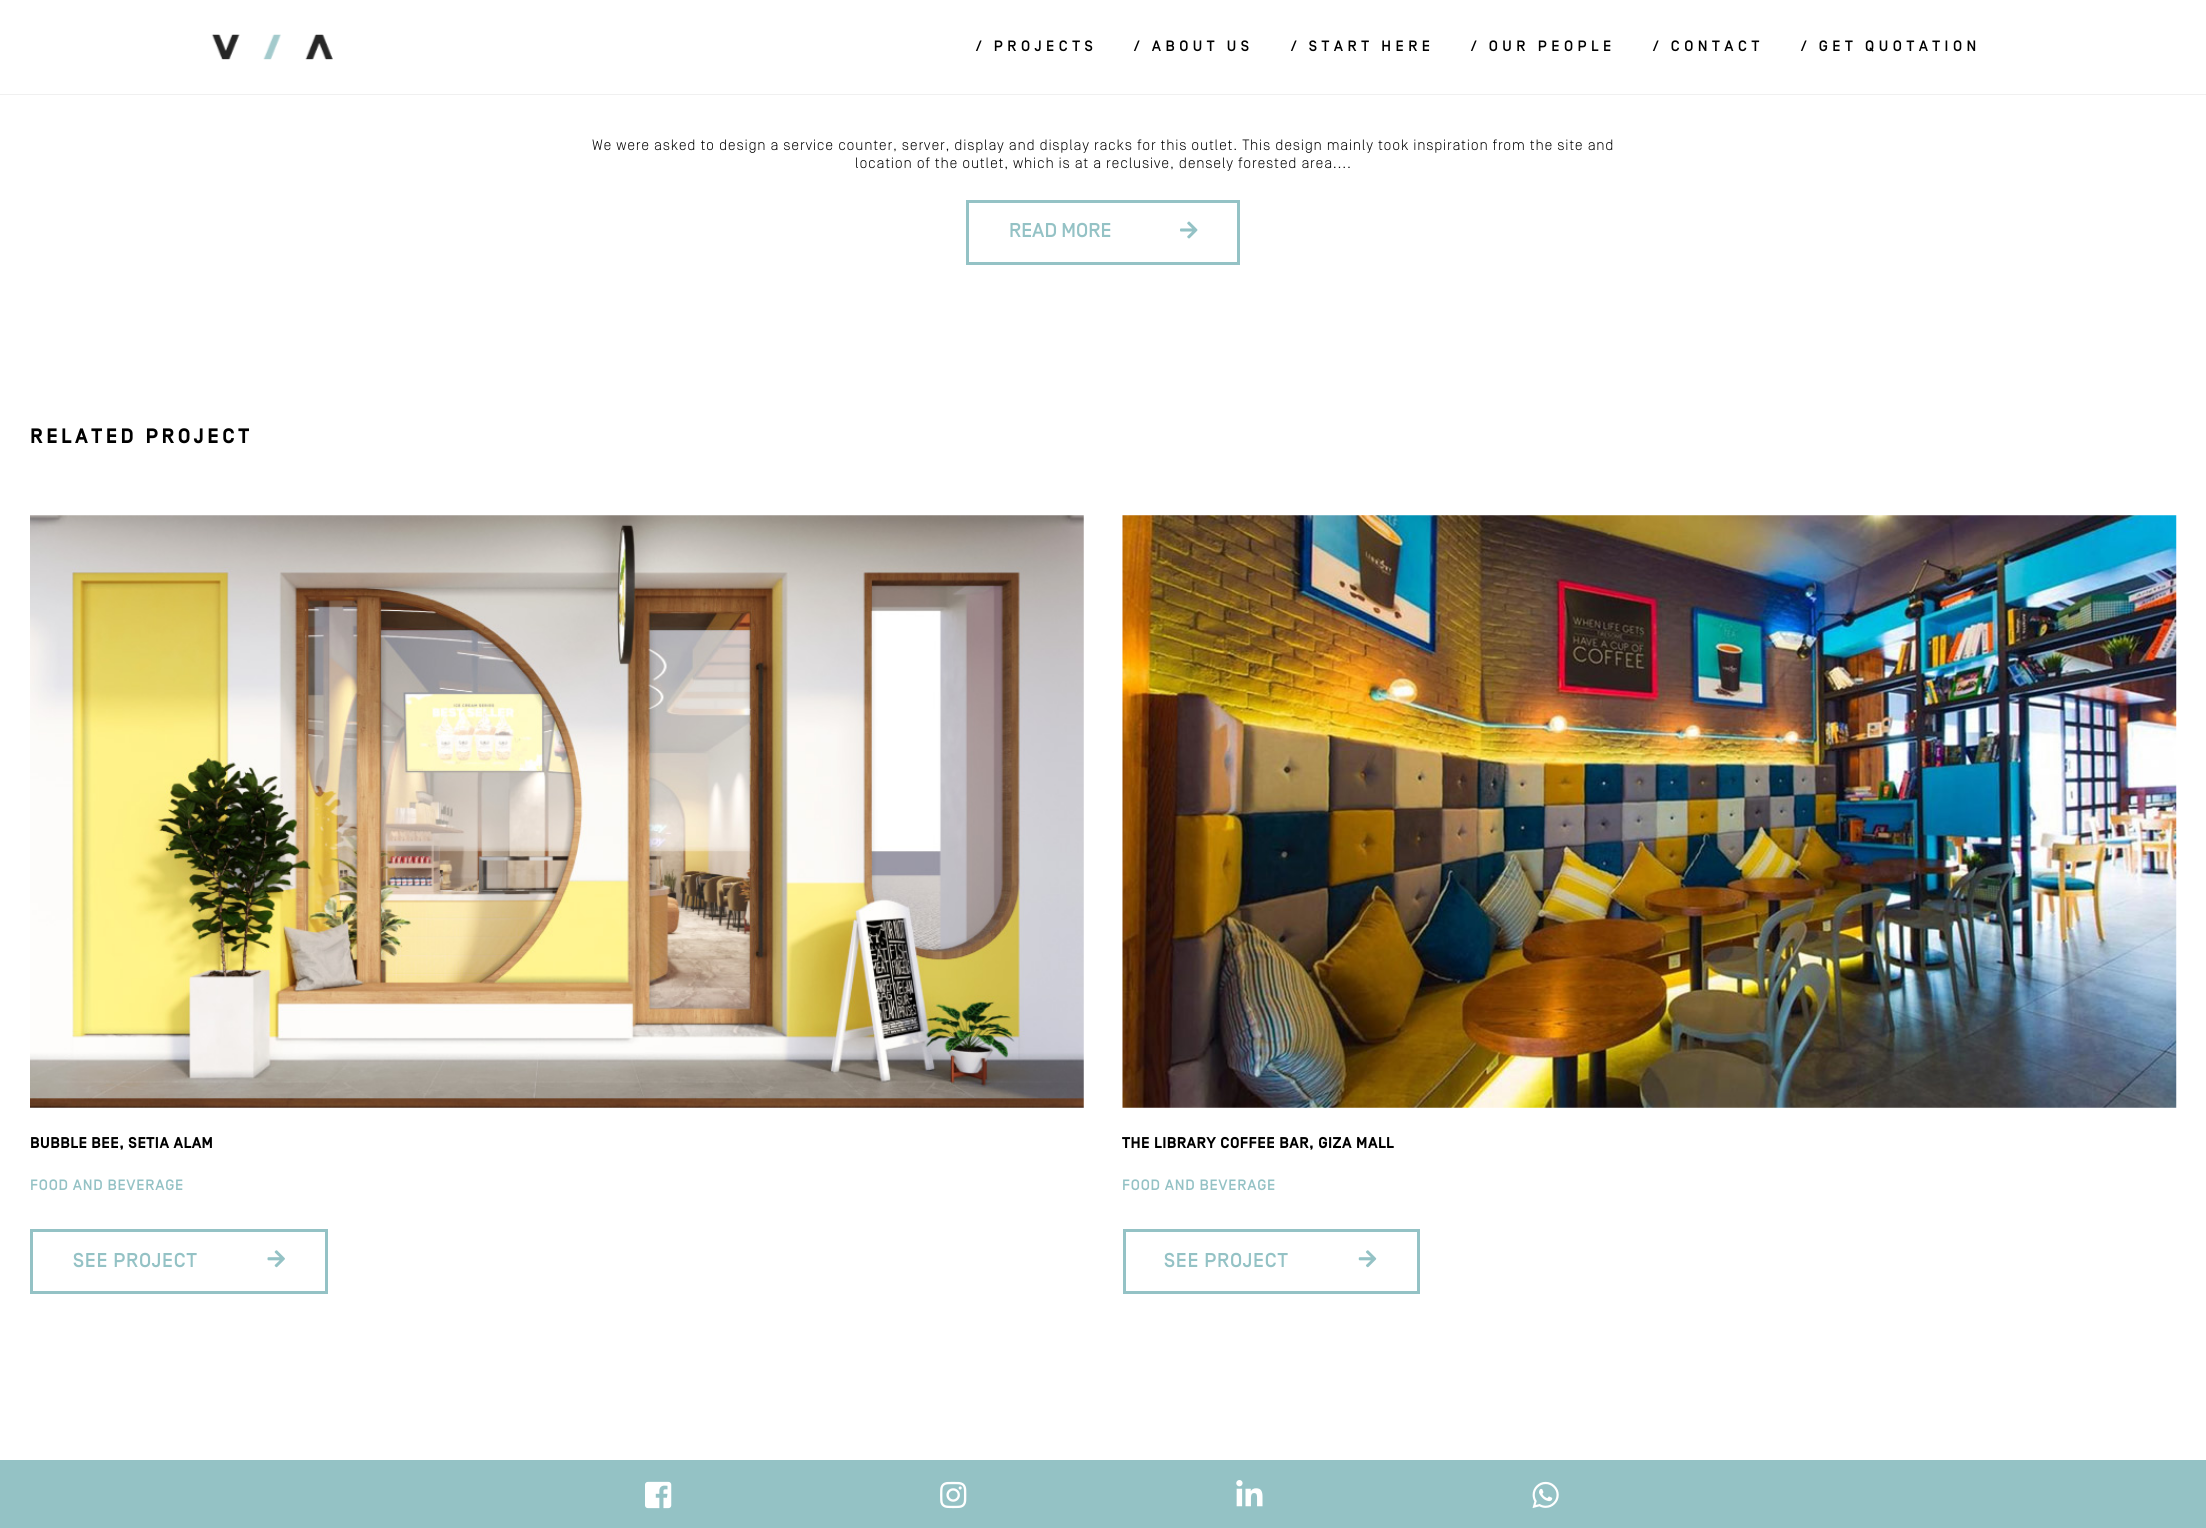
#include <cairo/cairo.h>
#include <math.h>
#include <stddef.h>

typedef struct { double x, y; const char *s; } line_t;
static cairo_t *cr;

static void rgb(unsigned color)
{
	cairo_set_source_rgb(cr, (color >> 16) / 255.0, (color >> 8 & 255) / 255.0, (color & 255) / 255.0);
}

static void tracked(double x, double y, const char *s, double letter, double word)
{
	cairo_move_to(cr, x, y);
	while (*s) {
		char ch[5] = {0};
		int n = 0;
		do ch[n++] = *s++; while ((*s & 0xC0) == 0x80);
		cairo_show_text(cr, ch);
		cairo_rel_move_to(cr, letter + word * (*ch == ' '), 0);
	}
}

static void image(const char *path, double x, double y, double w, double h)
{
	cairo_surface_t *image = cairo_image_surface_create_from_png(path);
	cairo_save(cr);
	cairo_set_source_surface(cr, image, x, y);
	cairo_rectangle(cr, x, y, w, h);
	cairo_fill(cr);
	cairo_restore(cr);
	cairo_surface_destroy(image);
}

int main(void) {
	cairo_surface_t *surface = cairo_image_surface_create(CAIRO_FORMAT_RGB24, 2206, 1528);
	cr = cairo_create(surface);
	cairo_font_options_t *options = cairo_font_options_create();
	cairo_font_options_set_hint_metrics(options, CAIRO_HINT_METRICS_OFF);
	cairo_font_options_set_hint_style(options, CAIRO_HINT_STYLE_NONE);
	cairo_set_font_options(cr, options);
	cairo_set_miter_limit(cr, 4);
	rgb(0xffffff);
	cairo_paint(cr);
	rgb(0xf0f0f0);
	cairo_rectangle(cr, 0, 94, 2206, 1);
	cairo_fill(cr);
	image("img/1.png", 211, 34, 122, 26);
	cairo_rectangle(cr, 967.5, 201.5, 271, 62);
	rgb(0x94c2c5);
	cairo_set_line_width(cr, 3);
	cairo_stroke(cr);
	image("img/2.png", 1180, 221, 18, 18);
	image("img/3.png", 30, 515, 1054, 593);
	cairo_rectangle(cr, 31.5, 1230.5, 295, 62);
	cairo_stroke(cr);
	image("img/4.png", 267, 1250, 18, 18);
	image("img/5.png", 1122, 515, 1055, 593);
	cairo_rectangle(cr, 1124.5, 1230.5, 294, 62);
	cairo_stroke(cr);
	image("img/6.png", 1358, 1250, 19, 18);
	cairo_rectangle(cr, 0, 1460, 2206, 68);
	cairo_fill(cr);
	image("img/7.png", 645, 1481, 27, 28);
	image("img/8.png", 940, 1481, 27, 28);
	image("img/9.png", 1236, 1480, 27, 27);
	image("img/10.png", 1532, 1481, 27, 27);
	cairo_select_font_face(cr, "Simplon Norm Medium", CAIRO_FONT_SLANT_NORMAL, CAIRO_FONT_WEIGHT_NORMAL);
	cairo_set_font_size(cr, 15);
	rgb(0x000000);
	{
		static const line_t items[] = {
			{976, 51, "/ PROJECTS"},
			{1134, 51, "/ ABOUT US"},
			{1291, 51, "/ START HERE"},
			{1471, 51, "/ OUR PEOPLE"},
			{1653, 51, "/ CONTACT"},
			{1801, 51, "/ GET QUOTATION"},
		};
		for (size_t i = 0; i < sizeof items / sizeof *items; i++) {
			tracked(items[i].x, items[i].y, items[i].s, 4.5, 0);
		}
	}
	cairo_select_font_face(cr, "Simplon Norm Light", CAIRO_FONT_SLANT_NORMAL, CAIRO_FONT_WEIGHT_NORMAL);
	tracked(592, 150, "We were asked to design a service counter, server, display and display racks for this outlet. This design mainly took inspiration from the site and", 0.75, 0);
	tracked(855, 168, "location of the outlet, which is at a reclusive, densely forested area....", 0.75, 0);
	cairo_select_font_face(cr, "Simplon Norm Medium", CAIRO_FONT_SLANT_NORMAL, CAIRO_FONT_WEIGHT_NORMAL);
	cairo_set_font_size(cr, 20);
	rgb(0x94c2c5);
	cairo_move_to(cr, 1009, 237);
	cairo_show_text(cr, "READ MORE");
	cairo_select_font_face(cr, "Simplon Norm", CAIRO_FONT_SLANT_NORMAL, CAIRO_FONT_WEIGHT_BOLD);
	rgb(0x000000);
	tracked(30, 443, "RELATED PROJECT", 4, 0);
	cairo_set_font_size(cr, 15);
	tracked(30, 1148, "BUBBLE BEE, SETIA ALAM", 0.75, 0);
	cairo_select_font_face(cr, "Simplon Norm Medium", CAIRO_FONT_SLANT_NORMAL, CAIRO_FONT_WEIGHT_NORMAL);
	rgb(0x94c2c5);
	tracked(30, 1190, "FOOD AND BEVERAGE", 0.75, 0);
	cairo_set_font_size(cr, 20);
	tracked(73, 1267, "SEE PROJECT", 0.75, 0);
	cairo_select_font_face(cr, "Simplon Norm", CAIRO_FONT_SLANT_NORMAL, CAIRO_FONT_WEIGHT_BOLD);
	cairo_set_font_size(cr, 15);
	rgb(0x000000);
	tracked(1122, 1148, "THE LIBRARY COFFEE BAR, GIZA MALL", 0.75, 0);
	cairo_select_font_face(cr, "Simplon Norm Medium", CAIRO_FONT_SLANT_NORMAL, CAIRO_FONT_WEIGHT_NORMAL);
	rgb(0x94c2c5);
	tracked(1122, 1190, "FOOD AND BEVERAGE", 0.75, 0);
	cairo_set_font_size(cr, 20);
	tracked(1164, 1267, "SEE PROJECT", 0.75, 0);
	cairo_surface_write_to_png(surface, "page.png");
	cairo_font_options_destroy(options);
	cairo_destroy(cr);
	cairo_surface_destroy(surface);
	return 0;
}
